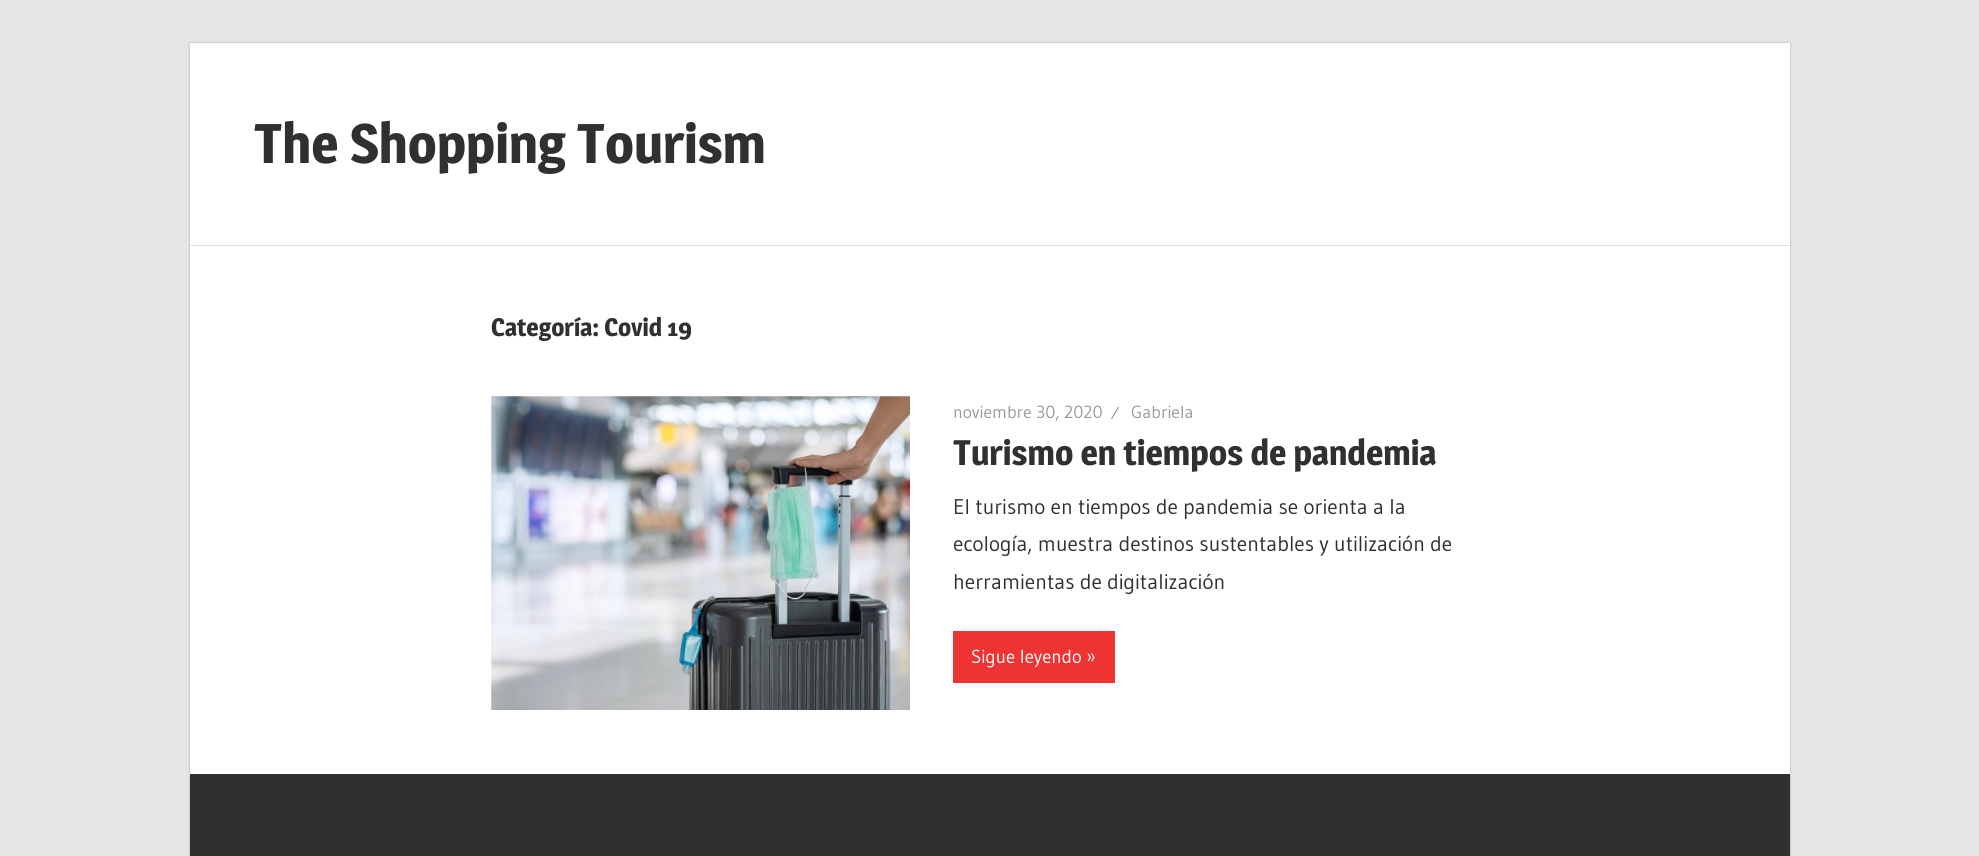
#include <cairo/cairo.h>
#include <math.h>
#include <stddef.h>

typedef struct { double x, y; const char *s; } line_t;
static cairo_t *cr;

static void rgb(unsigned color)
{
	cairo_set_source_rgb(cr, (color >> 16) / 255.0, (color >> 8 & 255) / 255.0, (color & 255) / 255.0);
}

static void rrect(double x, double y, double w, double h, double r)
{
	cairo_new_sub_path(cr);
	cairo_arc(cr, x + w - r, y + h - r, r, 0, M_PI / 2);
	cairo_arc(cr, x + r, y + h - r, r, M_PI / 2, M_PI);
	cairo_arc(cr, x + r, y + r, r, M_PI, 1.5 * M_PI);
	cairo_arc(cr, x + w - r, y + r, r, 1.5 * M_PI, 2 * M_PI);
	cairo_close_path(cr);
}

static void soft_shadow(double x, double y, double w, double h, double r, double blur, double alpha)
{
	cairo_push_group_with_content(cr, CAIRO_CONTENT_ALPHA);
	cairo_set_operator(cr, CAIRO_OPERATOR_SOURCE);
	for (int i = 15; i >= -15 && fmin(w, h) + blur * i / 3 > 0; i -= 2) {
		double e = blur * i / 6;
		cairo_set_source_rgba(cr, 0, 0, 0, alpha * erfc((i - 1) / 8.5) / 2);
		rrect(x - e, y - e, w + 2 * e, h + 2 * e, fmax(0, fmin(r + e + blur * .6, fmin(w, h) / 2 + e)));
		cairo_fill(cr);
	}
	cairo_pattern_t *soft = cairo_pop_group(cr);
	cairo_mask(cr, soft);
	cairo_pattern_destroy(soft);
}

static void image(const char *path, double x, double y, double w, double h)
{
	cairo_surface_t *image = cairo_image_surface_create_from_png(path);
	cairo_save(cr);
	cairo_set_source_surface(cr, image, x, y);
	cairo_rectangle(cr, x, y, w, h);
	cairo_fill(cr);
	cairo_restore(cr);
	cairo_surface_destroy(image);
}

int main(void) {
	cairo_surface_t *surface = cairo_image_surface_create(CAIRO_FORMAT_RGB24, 1979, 856);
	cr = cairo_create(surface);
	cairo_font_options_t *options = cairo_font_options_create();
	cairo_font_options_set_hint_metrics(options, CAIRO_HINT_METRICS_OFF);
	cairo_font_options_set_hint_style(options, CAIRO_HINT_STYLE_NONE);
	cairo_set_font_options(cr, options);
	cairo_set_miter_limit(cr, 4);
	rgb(0xe5e5e5);
	cairo_paint(cr);
	rgb(0xaaaaaa);
	soft_shadow(190, 43, 1600, 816, 0, 1, 1);
	rgb(0xffffff);
	cairo_rectangle(cr, 190, 43, 1600, 731);
	cairo_fill(cr);
	rgb(0xdddddd);
	cairo_rectangle(cr, 190, 245, 1600, 1);
	cairo_fill(cr);
	image("img/1.png", 491, 396, 419, 314);
	rgb(0xee3333);
	cairo_rectangle(cr, 953, 631, 162, 52);
	cairo_fill(cr);
	rgb(0x303030);
	cairo_rectangle(cr, 190, 774, 1600, 82);
	cairo_fill(cr);
	cairo_select_font_face(cr, "Magra", CAIRO_FONT_SLANT_NORMAL, CAIRO_FONT_WEIGHT_BOLD);
	cairo_set_font_size(cr, 55);
	cairo_move_to(cr, 254, 163);
	cairo_show_text(cr, "The Shopping Tourism");
	cairo_set_font_size(cr, 25);
	cairo_move_to(cr, 491, 336);
	cairo_show_text(cr, "Categoría: Covid 19");
	cairo_select_font_face(cr, "Gudea", CAIRO_FONT_SLANT_NORMAL, CAIRO_FONT_WEIGHT_NORMAL);
	cairo_set_font_size(cr, 17.5);
	rgb(0x999999);
	{
		static const line_t items[] = {
			{953, 418, "noviembre 30, 2020"},
			{1111, 419, "⁄"},
			{1131, 418, "Gabriela"},
		};
		for (size_t i = 0; i < sizeof items / sizeof *items; i++) {
			cairo_move_to(cr, items[i].x, items[i].y);
			cairo_show_text(cr, items[i].s);
		}
	}
	cairo_select_font_face(cr, "Magra", CAIRO_FONT_SLANT_NORMAL, CAIRO_FONT_WEIGHT_BOLD);
	cairo_set_font_size(cr, 35);
	rgb(0x303030);
	cairo_move_to(cr, 953, 465);
	cairo_show_text(cr, "Turismo en tiempos de pandemia");
	cairo_select_font_face(cr, "Gudea", CAIRO_FONT_SLANT_NORMAL, CAIRO_FONT_WEIGHT_NORMAL);
	cairo_set_font_size(cr, 21.25);
	{
		static const line_t items[] = {
			{953, 514, "El turismo en tiempos de pandemia se orienta a la"},
			{953, 551, "ecología, muestra destinos sustentables y utilización de"},
			{953, 589, "herramientas de digitalización"},
		};
		for (size_t i = 0; i < sizeof items / sizeof *items; i++) {
			cairo_move_to(cr, items[i].x, items[i].y);
			cairo_show_text(cr, items[i].s);
		}
	}
	cairo_set_font_size(cr, 18.75);
	rgb(0xffffff);
	cairo_move_to(cr, 971, 663);
	cairo_show_text(cr, "Sigue leyendo »");
	cairo_surface_write_to_png(surface, "page.png");
	cairo_font_options_destroy(options);
	cairo_destroy(cr);
	cairo_surface_destroy(surface);
	return 0;
}
